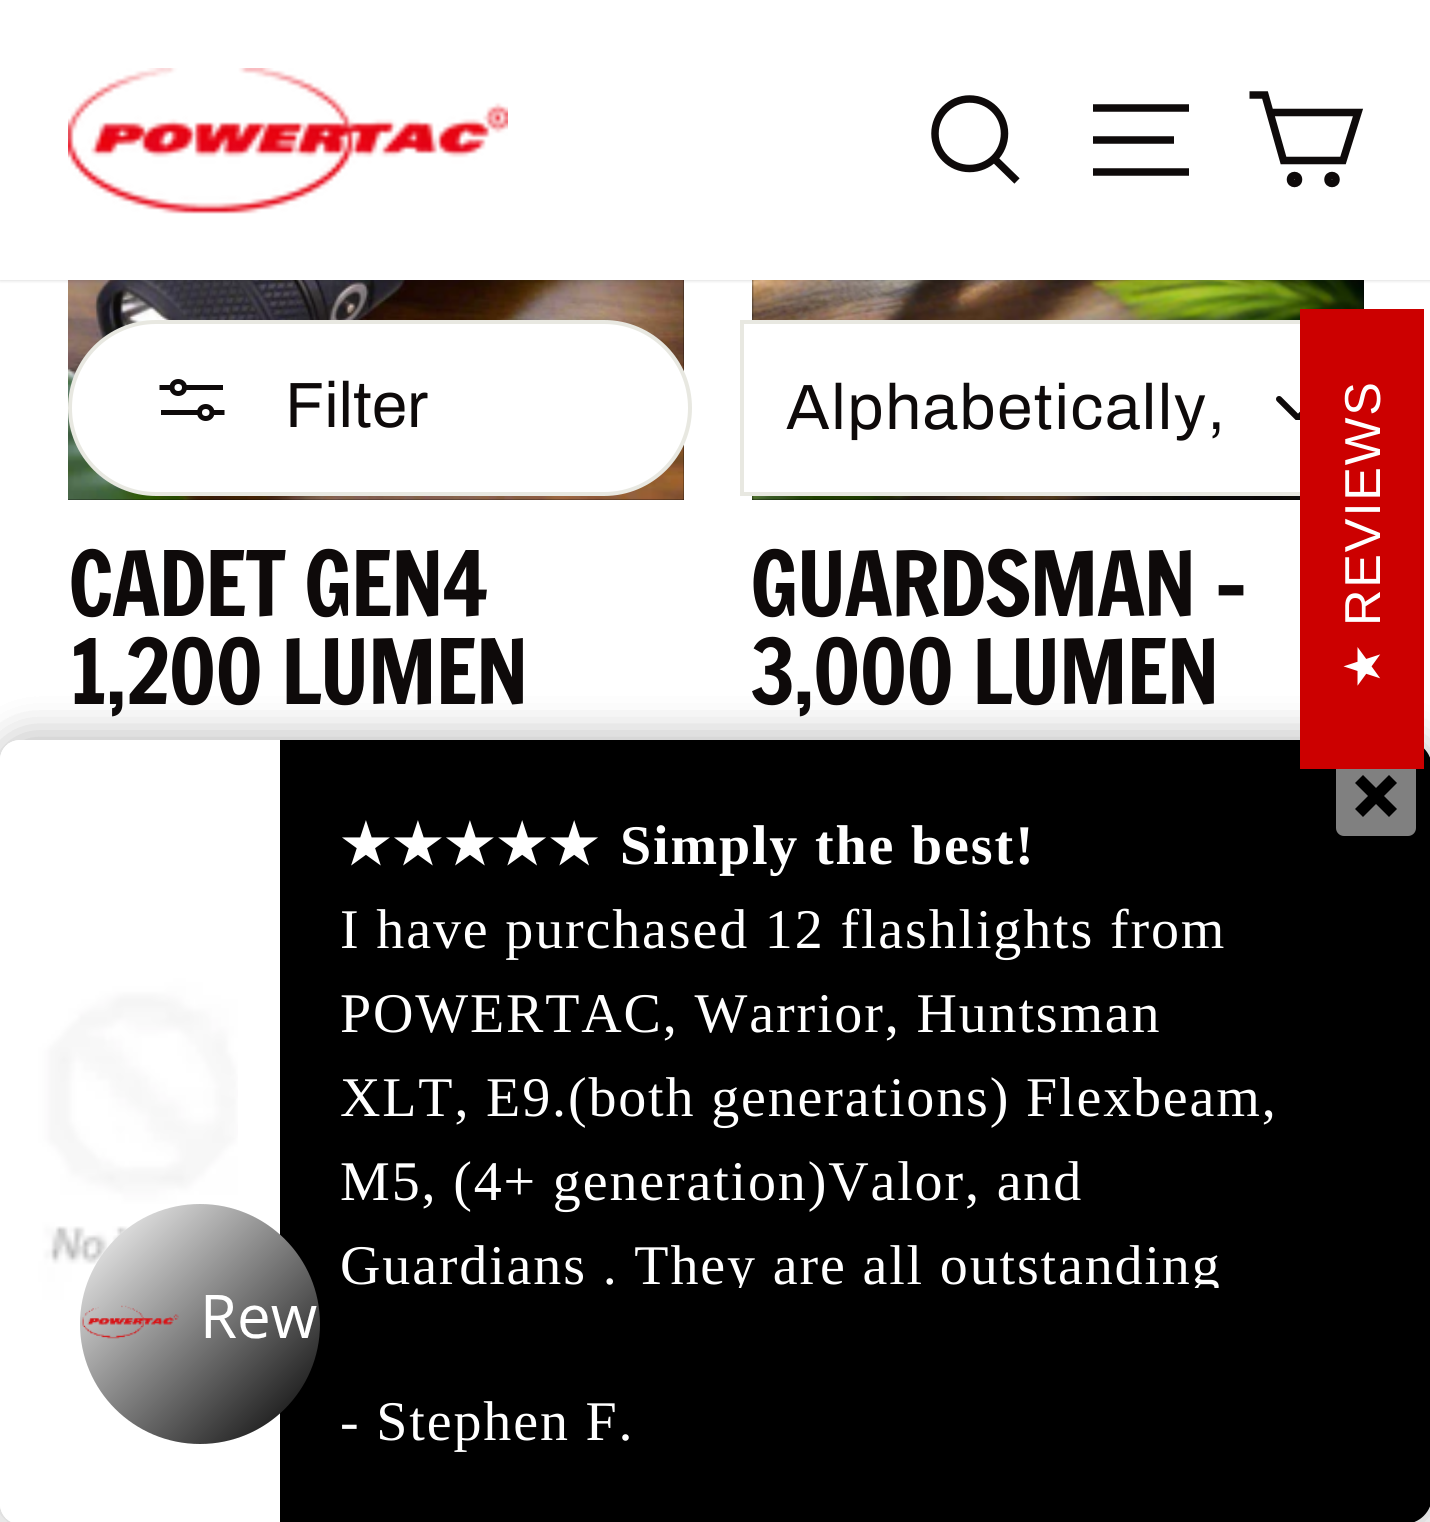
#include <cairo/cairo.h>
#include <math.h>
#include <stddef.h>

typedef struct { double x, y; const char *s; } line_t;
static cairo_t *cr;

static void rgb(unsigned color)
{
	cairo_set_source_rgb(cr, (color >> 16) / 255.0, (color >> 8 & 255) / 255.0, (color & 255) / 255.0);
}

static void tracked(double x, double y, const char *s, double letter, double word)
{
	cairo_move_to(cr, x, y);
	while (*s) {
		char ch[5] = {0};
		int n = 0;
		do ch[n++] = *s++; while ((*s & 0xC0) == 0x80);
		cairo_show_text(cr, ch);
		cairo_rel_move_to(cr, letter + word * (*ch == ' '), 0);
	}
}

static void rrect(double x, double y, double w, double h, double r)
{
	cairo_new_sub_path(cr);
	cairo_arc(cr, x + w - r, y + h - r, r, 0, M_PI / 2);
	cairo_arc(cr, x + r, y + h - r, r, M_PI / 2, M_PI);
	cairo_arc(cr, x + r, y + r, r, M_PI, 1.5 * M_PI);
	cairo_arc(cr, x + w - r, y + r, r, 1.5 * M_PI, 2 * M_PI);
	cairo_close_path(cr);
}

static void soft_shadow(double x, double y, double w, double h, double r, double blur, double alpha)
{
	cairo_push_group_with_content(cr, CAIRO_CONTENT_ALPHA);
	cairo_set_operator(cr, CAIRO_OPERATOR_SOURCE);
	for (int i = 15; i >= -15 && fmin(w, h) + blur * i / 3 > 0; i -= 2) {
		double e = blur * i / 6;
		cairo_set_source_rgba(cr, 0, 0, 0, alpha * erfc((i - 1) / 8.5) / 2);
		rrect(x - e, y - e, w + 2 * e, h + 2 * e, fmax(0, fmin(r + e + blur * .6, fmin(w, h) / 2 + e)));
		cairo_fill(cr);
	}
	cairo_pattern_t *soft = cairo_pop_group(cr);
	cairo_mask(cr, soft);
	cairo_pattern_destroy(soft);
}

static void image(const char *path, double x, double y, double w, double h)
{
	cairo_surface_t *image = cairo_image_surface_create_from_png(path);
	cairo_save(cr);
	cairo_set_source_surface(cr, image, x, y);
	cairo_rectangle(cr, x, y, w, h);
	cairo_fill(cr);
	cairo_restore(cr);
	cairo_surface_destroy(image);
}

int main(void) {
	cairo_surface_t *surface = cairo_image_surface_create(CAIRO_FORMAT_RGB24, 1430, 1522);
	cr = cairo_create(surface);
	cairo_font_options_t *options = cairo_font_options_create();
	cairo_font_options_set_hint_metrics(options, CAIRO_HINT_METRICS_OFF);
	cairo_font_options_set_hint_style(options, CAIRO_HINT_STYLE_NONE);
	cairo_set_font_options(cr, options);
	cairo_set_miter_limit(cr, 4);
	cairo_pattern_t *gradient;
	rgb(0xffffff);
	cairo_paint(cr);
	rgb(0x000000);
	cairo_rectangle(cr, 68, 280, 616, 220);
	cairo_fill(cr);
	image("img/3.png", 68, 280, 616, 220);
	cairo_rectangle(cr, 752, 280, 612, 220);
	cairo_fill(cr);
	image("img/4.png", 752, 280, 612, 220);
	rgb(0x000000);
	soft_shadow(0, 0, 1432, 280, 0, 2, 0.2);
	rgb(0xffffff);
	cairo_rectangle(cr, 0, 0, 1430, 280);
	cairo_fill(cr);
	image("img/1.png", 68, 68, 440, 146);
	cairo_new_path(cr);
	cairo_move_to(cr, 1004.5, 133.5);
	cairo_curve_to(cr, 1004.5, 153, 989, 168.5, 969.5, 168.5);
	cairo_curve_to(cr, 950.5, 168.5, 935, 153, 935, 133.5);
	cairo_curve_to(cr, 935, 114.5, 950.5, 99, 969.5, 99);
	cairo_curve_to(cr, 989, 99, 1004.5, 114.5, 1004.5, 133.5);
	cairo_close_path(cr);
	cairo_move_to(cr, 1017, 181);
	cairo_line_to(cr, 994.5, 159);
	rgb(0x0e0a0a);
	cairo_set_line_width(cr, 7.5);
	cairo_stroke(cr);
	cairo_new_path(cr);
	cairo_move_to(cr, 1093, 108);
	cairo_line_to(cr, 1189, 108);
	cairo_move_to(cr, 1093, 140);
	cairo_line_to(cr, 1174, 140);
	cairo_move_to(cr, 1093, 172);
	cairo_line_to(cr, 1189, 172);
	cairo_stroke(cr);
	cairo_new_path(cr);
	cairo_move_to(cr, 1270, 112.5);
	cairo_line_to(cr, 1358, 112.5);
	cairo_line_to(cr, 1343, 160.5);
	cairo_line_to(cr, 1283.5, 160.5);
	cairo_line_to(cr, 1265, 95);
	cairo_line_to(cr, 1249.5, 95);
	cairo_stroke(cr);
	cairo_arc(cr, 1294.5, 179.5, 4, 0, 2 * M_PI);
	cairo_stroke(cr);
	cairo_arc(cr, 1332, 179.5, 4, 0, 2 * M_PI);
	cairo_stroke(cr);
	rgb(0xffffff);
	rrect(70, 322, 620, 172, 86);
	cairo_fill_preserve(cr);
	rgb(0xe8e8e1);
	cairo_set_line_width(cr, 4);
	cairo_stroke(cr);
	cairo_new_path(cr);
	cairo_move_to(cr, 212, 412.5);
	cairo_line_to(cr, 224.5, 412.5);
	cairo_move_to(cr, 212, 412.5);
	cairo_curve_to(cr, 212, 420.5, 199.5, 420.5, 199.5, 412.5);
	cairo_curve_to(cr, 199.5, 404.5, 212, 404.5, 212, 412.5);
	cairo_close_path(cr);
	cairo_move_to(cr, 161, 412.5);
	cairo_line_to(cr, 199.5, 412.5);
	cairo_move_to(cr, 172, 387.5);
	cairo_line_to(cr, 159.5, 387.5);
	cairo_move_to(cr, 172, 387.5);
	cairo_curve_to(cr, 172, 379.5, 184.5, 379.5, 184.5, 387.5);
	cairo_curve_to(cr, 184.5, 395.5, 172, 395.5, 172, 387.5);
	cairo_close_path(cr);
	cairo_move_to(cr, 223, 387.5);
	cairo_line_to(cr, 184.5, 387.5);
	rgb(0x0e0a0a);
	cairo_set_line_width(cr, 5);
	cairo_stroke(cr);
	rgb(0xffffff);
	cairo_rectangle(cr, 752, 324, 548, 168);
	cairo_fill(cr);
	image("img/2.png", 1276, 396, 24, 24);
	cairo_rectangle(cr, 742, 322, 620, 172);
	rgb(0xe8e8e1);
	cairo_set_line_width(cr, 4);
	cairo_stroke(cr);
	rgb(0xcccccc);
	soft_shadow(0, 740, 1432, 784, 28, 20, 1);
	soft_shadow(0, 740, 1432, 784, 28, 20, 1);
	rgb(0x000000);
	rrect(0, 740, 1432, 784, 28);
	cairo_fill(cr);
	rgb(0x808080);
	rrect(1336, 756, 80, 80, 8);
	cairo_fill(cr);
	rgb(0xcc0000);
	cairo_rectangle(cr, 1300, 309, 124, 460);
	cairo_fill(cr);
	rgb(0xffffff);
	cairo_new_path(cr);
	cairo_move_to(cr, 20, 740);
	cairo_line_to(cr, 280, 740);
	cairo_line_to(cr, 280, 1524);
	cairo_line_to(cr, 20, 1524);
	cairo_curve_to(cr, 9, 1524, 0, 1515, 0, 1504);
	cairo_line_to(cr, 0, 760);
	cairo_curve_to(cr, 0, 749, 9, 740, 20, 740);
	cairo_close_path(cr);
	cairo_fill(cr);
	image("img/6.png", 0, 740, 238, 782);
	gradient = cairo_pattern_create_linear(80, 1204, 320, 1444);
	cairo_pattern_add_color_stop_rgba(gradient, 0, 1, 1, 1, 1);
	cairo_pattern_add_color_stop_rgba(gradient, 1, 0, 0, 0, 1);
	cairo_set_source(cr, gradient);
	cairo_pattern_destroy(gradient);
	cairo_arc(cr, 200, 1324, 120, 0, 2 * M_PI);
	cairo_fill(cr);
	image("img/5.png", 82, 1295, 235, 44);
	rgb(0x000000);
	cairo_new_path(cr);
	cairo_move_to(cr, 1389, 775);
	cairo_line_to(cr, 1397, 783);
	cairo_line_to(cr, 1363, 817);
	cairo_line_to(cr, 1355, 809);
	cairo_close_path(cr);
	cairo_fill(cr);
	cairo_new_path(cr);
	cairo_move_to(cr, 1355, 783);
	cairo_line_to(cr, 1363, 775);
	cairo_line_to(cr, 1397, 809);
	cairo_line_to(cr, 1389, 817);
	cairo_close_path(cr);
	cairo_fill(cr);
	cairo_select_font_face(cr, "Archivo", CAIRO_FONT_SLANT_NORMAL, CAIRO_FONT_WEIGHT_NORMAL);
	cairo_set_font_size(cr, 64);
	rgb(0x0e0a0a);
	cairo_move_to(cr, 285, 427);
	cairo_show_text(cr, "Filter");
	tracked(786, 429, "Alphabetically,", 1.6, 0);
	cairo_select_font_face(cr, "Francois One", CAIRO_FONT_SLANT_NORMAL, CAIRO_FONT_WEIGHT_NORMAL);
	cairo_set_font_size(cr, 88);
	{
		static const line_t items[] = {
			{68, 616, "CADET GEN4"},
			{68, 704, "1,200 LUMEN"},
			{750, 616, "GUARDSMAN -"},
			{750, 704, "3,000 LUMEN"},
		};
		for (size_t i = 0; i < sizeof items / sizeof *items; i++) {
			tracked(items[i].x, items[i].y, items[i].s, -2.25, 0);
		}
	}
	cairo_select_font_face(cr, "Liberation Sans", CAIRO_FONT_SLANT_NORMAL, CAIRO_FONT_WEIGHT_NORMAL);
	cairo_set_font_size(cr, 50.5);
	rgb(0xffffff);
	cairo_save(cr);
	cairo_translate(cr, 1380, 626);
	cairo_rotate(cr, -90 * M_PI / 180);
	tracked(0, 0, "REVIEWS", 1.85, 0);
	cairo_restore(cr);
	cairo_select_font_face(cr, "DejaVu Sans", CAIRO_FONT_SLANT_NORMAL, CAIRO_FONT_WEIGHT_NORMAL);
	cairo_save(cr);
	cairo_translate(cr, 1380, 689);
	cairo_rotate(cr, -90 * M_PI / 180);
	tracked(0, 0, "★", 1.85, 0);
	cairo_restore(cr);
	cairo_select_font_face(cr, "DejaVu Sans", CAIRO_FONT_SLANT_NORMAL, CAIRO_FONT_WEIGHT_BOLD);
	cairo_set_font_size(cr, 56);
	tracked(340, 864, "★★★★★", 1.85, 0);
	cairo_select_font_face(cr, "Liberation Serif", CAIRO_FONT_SLANT_NORMAL, CAIRO_FONT_WEIGHT_BOLD);
	tracked(620, 864, "Simply the best!", 1.85, 0);
	cairo_select_font_face(cr, "Liberation Serif", CAIRO_FONT_SLANT_NORMAL, CAIRO_FONT_WEIGHT_NORMAL);
	{
		static const line_t items[] = {
			{340, 948, "I have purchased 12 flashlights from"},
			{340, 1032, "POWERTAC, Warrior, Huntsman"},
			{340, 1116, "XLT, E9.(both generations) Flexbeam,"},
			{340, 1200, "M5, (4+ generation)Valor, and"},
		};
		for (size_t i = 0; i < sizeof items / sizeof *items; i++) {
			tracked(items[i].x, items[i].y, items[i].s, 1.85, 0);
		}
	}
	cairo_save(cr);
	cairo_rectangle(cr, 340, 888, 952, 400);
	cairo_clip(cr);
	tracked(340, 1284, "Guardians . They are all outstanding", 1.85, 0);
	cairo_restore(cr);
	tracked(340, 1440, "- Stephen F.", 1.85, 0);
	cairo_surface_write_to_png(surface, "page.png");
	cairo_font_options_destroy(options);
	cairo_destroy(cr);
	cairo_surface_destroy(surface);
	return 0;
}
